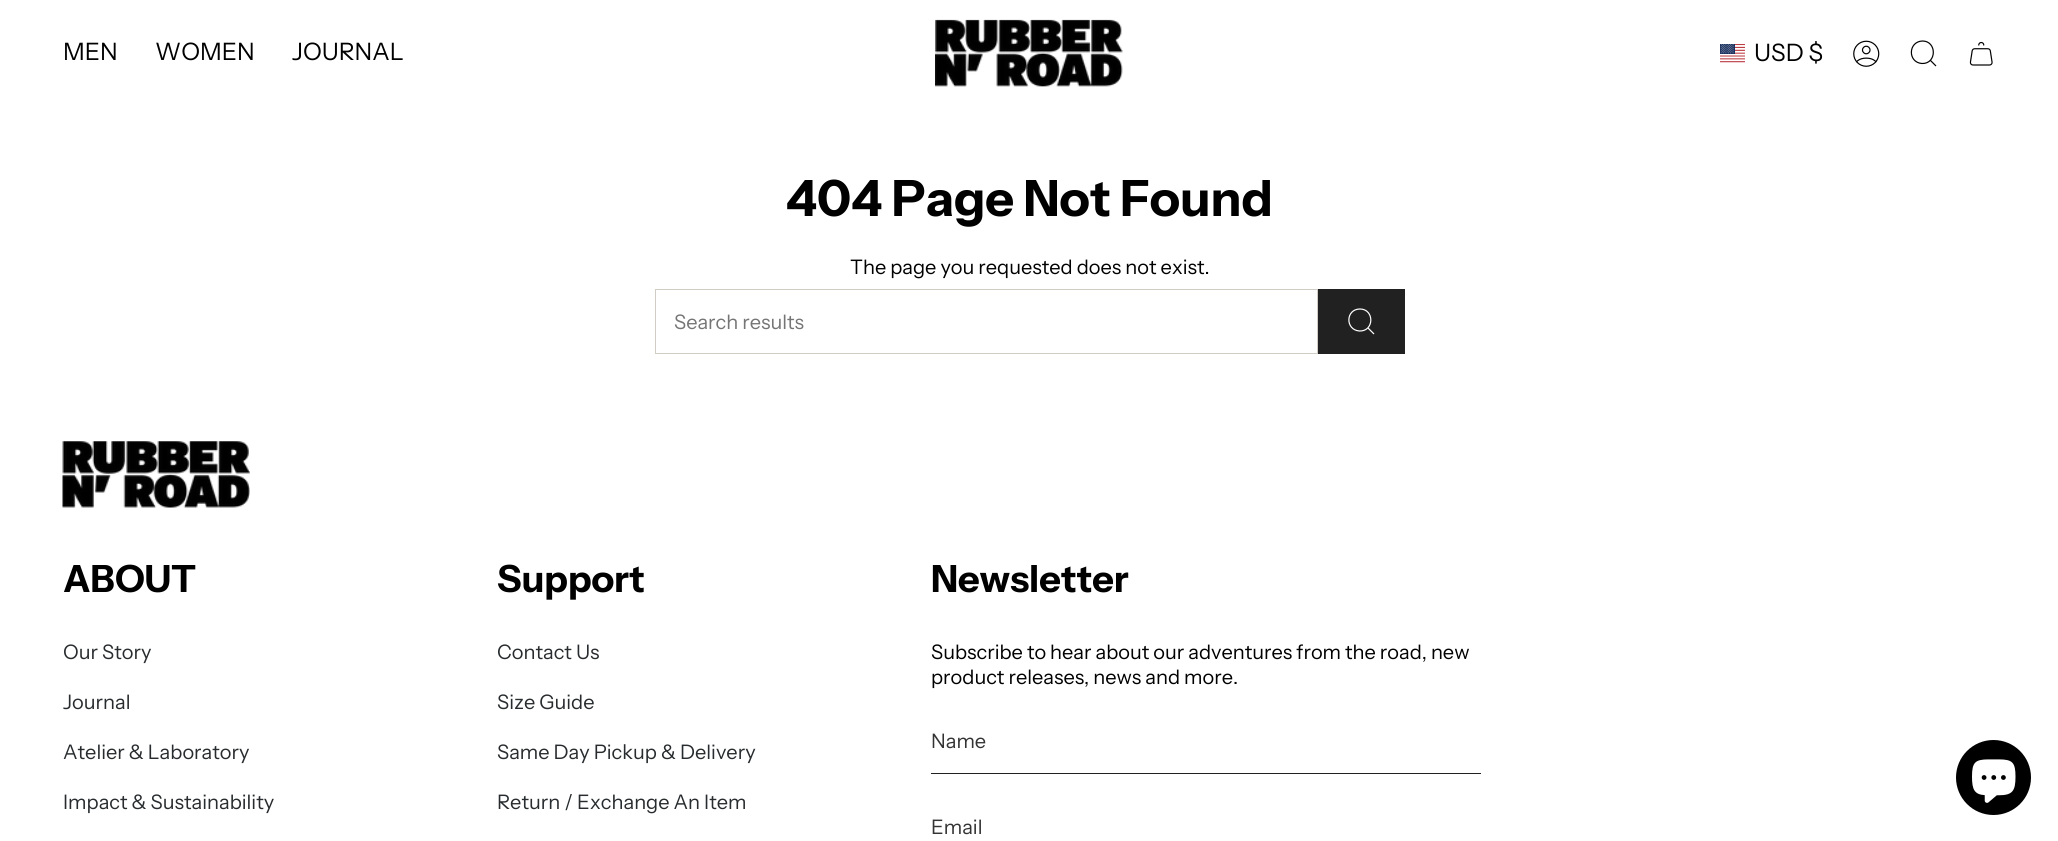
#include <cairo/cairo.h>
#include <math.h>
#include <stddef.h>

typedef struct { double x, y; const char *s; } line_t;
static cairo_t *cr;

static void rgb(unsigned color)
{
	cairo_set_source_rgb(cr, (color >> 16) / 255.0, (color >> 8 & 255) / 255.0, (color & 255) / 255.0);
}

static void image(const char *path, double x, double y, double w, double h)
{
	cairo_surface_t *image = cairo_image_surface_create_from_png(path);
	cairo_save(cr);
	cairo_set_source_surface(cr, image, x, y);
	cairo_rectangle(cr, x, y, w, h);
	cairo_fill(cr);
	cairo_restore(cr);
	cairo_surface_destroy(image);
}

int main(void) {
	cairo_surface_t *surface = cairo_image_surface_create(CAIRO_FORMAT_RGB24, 2058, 841);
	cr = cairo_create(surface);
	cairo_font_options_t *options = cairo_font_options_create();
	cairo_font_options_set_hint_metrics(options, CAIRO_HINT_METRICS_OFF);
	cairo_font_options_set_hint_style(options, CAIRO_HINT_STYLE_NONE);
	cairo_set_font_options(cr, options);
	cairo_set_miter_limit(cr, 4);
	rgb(0xffffff);
	cairo_paint(cr);
	image("img/1.png", 935, 19, 188, 68);
	image("img/2.png", 1720, 44, 25, 19);
	image("img/3.png", 1853, 40, 27, 27);
	cairo_new_path(cr);
	cairo_move_to(cr, 1922.5, 41);
	cairo_curve_to(cr, 1937, 41, 1937, 64, 1922, 63.5);
	cairo_curve_to(cr, 1907.5, 62.5, 1908, 41.5, 1922.5, 41);
	cairo_close_path(cr);
	cairo_move_to(cr, 1930, 60);
	cairo_line_to(cr, 1936, 66);
	rgb(0x000000);
	cairo_set_line_width(cr, 1.2);
	cairo_stroke(cr);
	image("img/4.png", 1969, 41, 24, 25);
	cairo_rectangle(cr, 655.5, 289.5, 662, 64);
	rgb(0xd1cdc4);
	cairo_set_line_width(cr, 1);
	cairo_stroke(cr);
	rgb(0x212121);
	cairo_rectangle(cr, 1318, 289, 87, 65);
	cairo_fill(cr);
	cairo_new_path(cr);
	cairo_move_to(cr, 1360, 309);
	cairo_curve_to(cr, 1374.5, 309, 1374.5, 331.5, 1359.5, 331);
	cairo_curve_to(cr, 1345, 330, 1345.5, 309, 1360, 309);
	cairo_close_path(cr);
	cairo_move_to(cr, 1367.5, 327.5);
	cairo_line_to(cr, 1374, 334);
	rgb(0xffffff);
	cairo_set_line_width(cr, 1.2);
	cairo_stroke(cr);
	image("img/5.png", 62, 441, 188, 67);
	rgb(0x212121);
	cairo_rectangle(cr, 931, 773, 550, 1);
	cairo_fill(cr);
	rgb(0x000000);
	cairo_arc(cr, 1993.5, 777.5, 37.5, 0, 2 * M_PI);
	cairo_fill(cr);
	image("img/6.png", 1972, 759, 44, 44);
	cairo_select_font_face(cr, "Instrument Sans", CAIRO_FONT_SLANT_NORMAL, CAIRO_FONT_WEIGHT_NORMAL);
	cairo_set_font_size(cr, 24);
	{
		static const line_t items[] = {
			{63, 60, "MEN"},
			{155, 60, "WOMEN"},
			{292, 60, "JOURNAL"},
			{1754, 61, "USD $"},
		};
		for (size_t i = 0; i < sizeof items / sizeof *items; i++) {
			cairo_move_to(cr, items[i].x, items[i].y);
			cairo_show_text(cr, items[i].s);
		}
	}
	cairo_select_font_face(cr, "Instrument Sans", CAIRO_FONT_SLANT_NORMAL, CAIRO_FONT_WEIGHT_BOLD);
	cairo_set_font_size(cr, 50);
	cairo_move_to(cr, 786, 216);
	cairo_show_text(cr, "404 Page Not Found");
	cairo_select_font_face(cr, "Instrument Sans", CAIRO_FONT_SLANT_NORMAL, CAIRO_FONT_WEIGHT_NORMAL);
	cairo_set_font_size(cr, 20);
	cairo_move_to(cr, 850, 274);
	cairo_show_text(cr, "The page you requested does not exist.");
	rgb(0x757575);
	cairo_move_to(cr, 674, 329);
	cairo_show_text(cr, "Search results");
	cairo_select_font_face(cr, "Instrument Sans", CAIRO_FONT_SLANT_NORMAL, CAIRO_FONT_WEIGHT_BOLD);
	cairo_set_font_size(cr, 37.5);
	rgb(0x000000);
	cairo_move_to(cr, 63, 592);
	cairo_show_text(cr, "ABOUT");
	cairo_select_font_face(cr, "Instrument Sans", CAIRO_FONT_SLANT_NORMAL, CAIRO_FONT_WEIGHT_NORMAL);
	cairo_set_font_size(cr, 20);
	rgb(0x282c2e);
	{
		static const line_t items[] = {
			{63, 659, "Our Story"},
			{63, 709, "Journal"},
			{63, 759, "Atelier & Laboratory"},
			{63, 809, "Impact & Sustainability"},
		};
		for (size_t i = 0; i < sizeof items / sizeof *items; i++) {
			cairo_move_to(cr, items[i].x, items[i].y);
			cairo_show_text(cr, items[i].s);
		}
	}
	cairo_select_font_face(cr, "Instrument Sans", CAIRO_FONT_SLANT_NORMAL, CAIRO_FONT_WEIGHT_BOLD);
	cairo_set_font_size(cr, 37.5);
	rgb(0x000000);
	cairo_move_to(cr, 497, 592);
	cairo_show_text(cr, "Support");
	cairo_select_font_face(cr, "Instrument Sans", CAIRO_FONT_SLANT_NORMAL, CAIRO_FONT_WEIGHT_NORMAL);
	cairo_set_font_size(cr, 20);
	rgb(0x282c2e);
	{
		static const line_t items[] = {
			{497, 659, "Contact Us"},
			{497, 709, "Size Guide"},
			{497, 759, "Same Day Pickup & Delivery"},
			{497, 809, "Return / Exchange An Item"},
		};
		for (size_t i = 0; i < sizeof items / sizeof *items; i++) {
			cairo_move_to(cr, items[i].x, items[i].y);
			cairo_show_text(cr, items[i].s);
		}
	}
	cairo_select_font_face(cr, "Instrument Sans", CAIRO_FONT_SLANT_NORMAL, CAIRO_FONT_WEIGHT_BOLD);
	cairo_set_font_size(cr, 37.5);
	rgb(0x000000);
	cairo_move_to(cr, 931, 592);
	cairo_show_text(cr, "Newsletter");
	cairo_select_font_face(cr, "Instrument Sans", CAIRO_FONT_SLANT_NORMAL, CAIRO_FONT_WEIGHT_NORMAL);
	cairo_set_font_size(cr, 20);
	cairo_move_to(cr, 931, 659);
	cairo_show_text(cr, "Subscribe to hear about our adventures from the road, new");
	cairo_move_to(cr, 931, 684);
	cairo_show_text(cr, "product releases, news and more.");
	rgb(0x333333);
	cairo_move_to(cr, 931, 748);
	cairo_show_text(cr, "Name");
	cairo_move_to(cr, 931, 834);
	cairo_show_text(cr, "Email");
	cairo_surface_write_to_png(surface, "page.png");
	cairo_font_options_destroy(options);
	cairo_destroy(cr);
	cairo_surface_destroy(surface);
	return 0;
}
